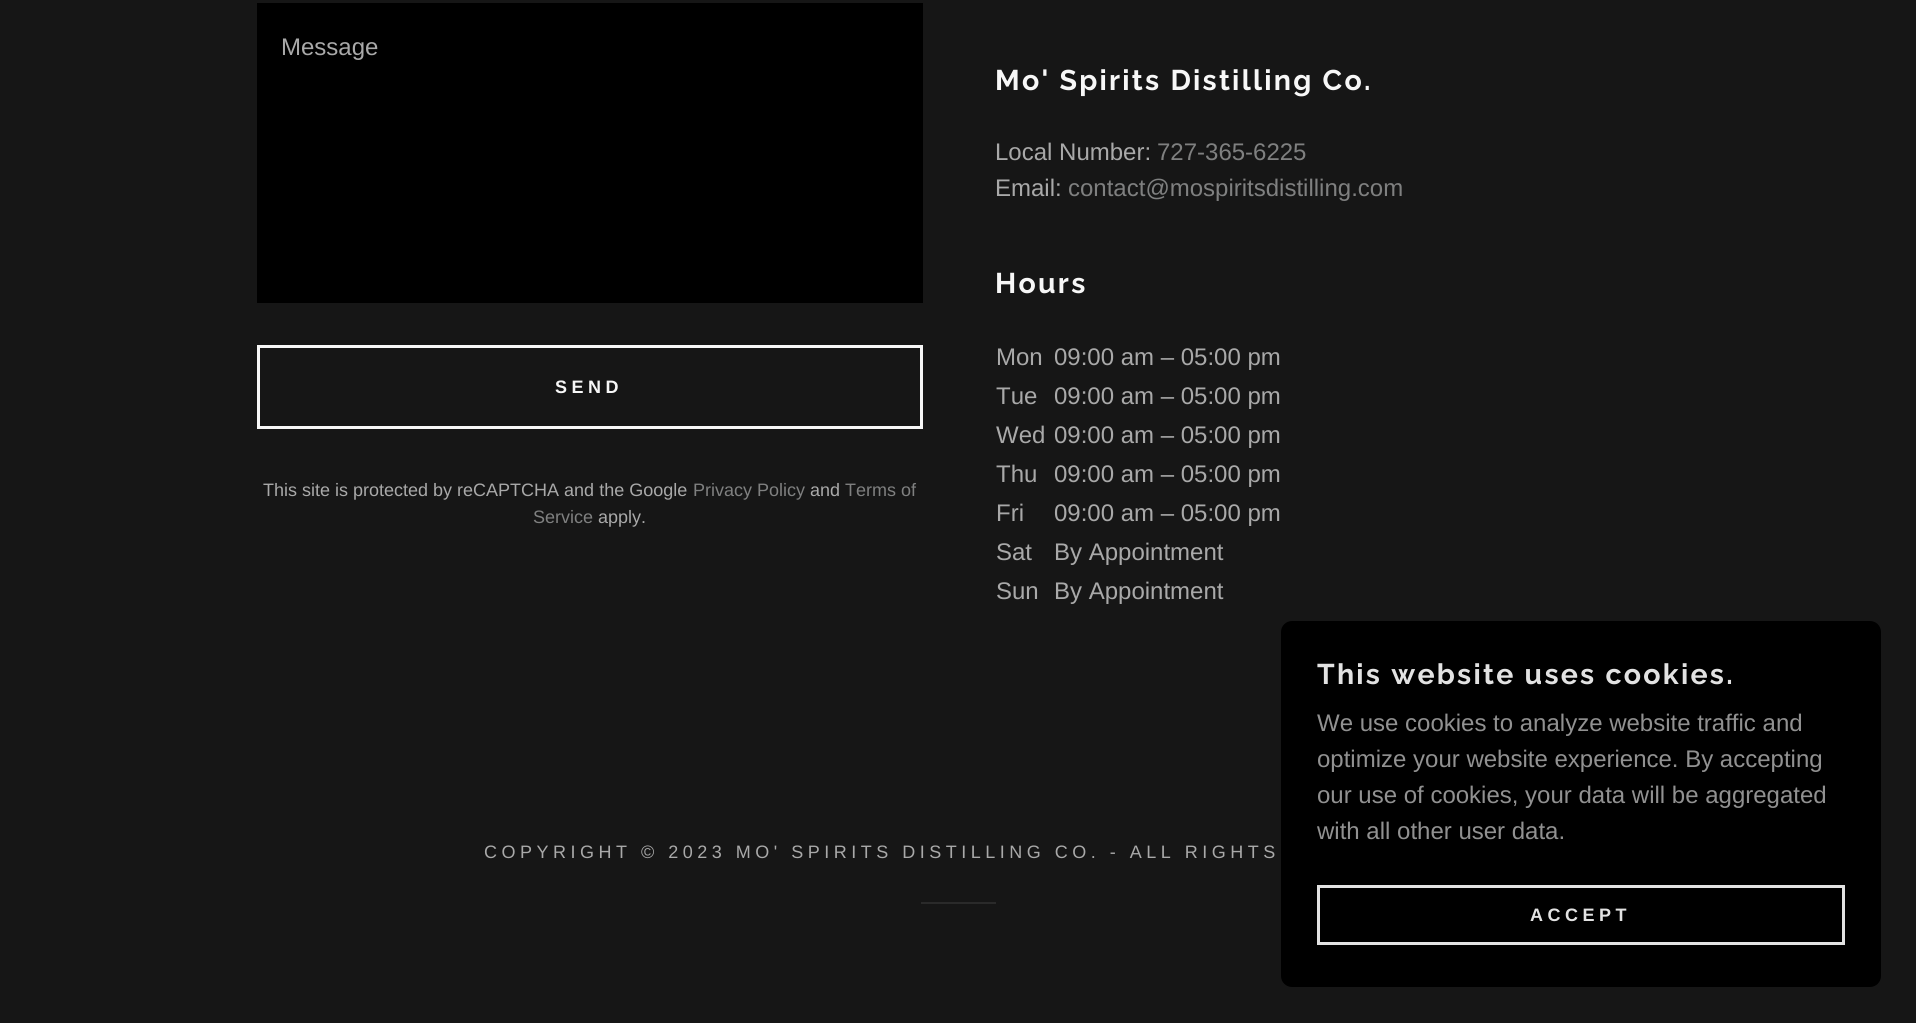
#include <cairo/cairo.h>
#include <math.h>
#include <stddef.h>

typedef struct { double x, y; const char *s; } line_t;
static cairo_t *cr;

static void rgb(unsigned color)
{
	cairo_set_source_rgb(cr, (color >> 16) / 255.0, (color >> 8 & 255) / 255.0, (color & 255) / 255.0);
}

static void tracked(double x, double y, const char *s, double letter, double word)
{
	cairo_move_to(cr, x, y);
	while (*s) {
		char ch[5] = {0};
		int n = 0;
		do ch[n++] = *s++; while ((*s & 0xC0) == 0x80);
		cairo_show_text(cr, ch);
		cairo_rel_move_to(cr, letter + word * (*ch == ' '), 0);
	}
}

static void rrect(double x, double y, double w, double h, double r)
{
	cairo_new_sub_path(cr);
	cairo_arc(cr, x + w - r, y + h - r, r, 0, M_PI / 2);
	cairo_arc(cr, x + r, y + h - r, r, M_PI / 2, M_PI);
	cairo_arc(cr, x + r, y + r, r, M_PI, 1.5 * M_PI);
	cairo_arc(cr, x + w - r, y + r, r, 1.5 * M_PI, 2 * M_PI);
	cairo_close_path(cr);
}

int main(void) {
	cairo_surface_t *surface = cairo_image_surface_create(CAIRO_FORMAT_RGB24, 1916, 1023);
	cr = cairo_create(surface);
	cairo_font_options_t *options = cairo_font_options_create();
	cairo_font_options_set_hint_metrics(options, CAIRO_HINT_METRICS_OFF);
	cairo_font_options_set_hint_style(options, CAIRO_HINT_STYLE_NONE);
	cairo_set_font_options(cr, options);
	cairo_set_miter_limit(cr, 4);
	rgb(0x161616);
	cairo_paint(cr);
	rgb(0x000000);
	cairo_rectangle(cr, 257, 3, 666, 300);
	cairo_fill(cr);
	cairo_rectangle(cr, 258.5, 346.5, 663, 81);
	rgb(0xf7f7f7);
	cairo_set_line_width(cr, 3);
	cairo_stroke(cr);
	rgb(0x2a2a2a);
	cairo_rectangle(cr, 921, 902, 75, 2);
	cairo_fill(cr);
	rgb(0x000000);
	rrect(1281, 621, 600, 366, 11);
	cairo_fill(cr);
	cairo_rectangle(cr, 1318.5, 886.5, 525, 57);
	rgb(0xe2e2e2);
	cairo_stroke(cr);
	cairo_select_font_face(cr, "Liberation Sans", CAIRO_FONT_SLANT_NORMAL, CAIRO_FONT_WEIGHT_NORMAL);
	cairo_set_font_size(cr, 24);
	rgb(0xa9a9a9);
	cairo_move_to(cr, 281, 55);
	cairo_show_text(cr, "Message");
	cairo_select_font_face(cr, "Liberation Sans", CAIRO_FONT_SLANT_NORMAL, CAIRO_FONT_WEIGHT_BOLD);
	cairo_set_font_size(cr, 18);
	rgb(0xf7f7f7);
	tracked(555, 393, "SEND", 4.5, 0);
	cairo_select_font_face(cr, "Liberation Sans", CAIRO_FONT_SLANT_NORMAL, CAIRO_FONT_WEIGHT_NORMAL);
	rgb(0xa9a9a9);
	cairo_move_to(cr, 263, 496);
	cairo_show_text(cr, "This site is protected by reCAPTCHA and the Google");
	rgb(0x7f8080);
	cairo_move_to(cr, 693, 496);
	cairo_show_text(cr, "Privacy Policy");
	rgb(0xa9a9a9);
	cairo_move_to(cr, 810, 496);
	cairo_show_text(cr, "and");
	rgb(0x7f8080);
	cairo_move_to(cr, 845, 496);
	cairo_show_text(cr, "Terms of");
	cairo_move_to(cr, 533, 523);
	cairo_show_text(cr, "Service");
	rgb(0xa9a9a9);
	cairo_move_to(cr, 598, 523);
	cairo_show_text(cr, "apply.");
	cairo_select_font_face(cr, "Raleway", CAIRO_FONT_SLANT_NORMAL, CAIRO_FONT_WEIGHT_BOLD);
	cairo_set_font_size(cr, 28.5);
	rgb(0xf7f7f7);
	tracked(995, 90, "Mo' Spirits Distilling Co.", 2.25, 0);
	cairo_select_font_face(cr, "Liberation Sans", CAIRO_FONT_SLANT_NORMAL, CAIRO_FONT_WEIGHT_NORMAL);
	cairo_set_font_size(cr, 24);
	rgb(0xa9a9a9);
	cairo_move_to(cr, 995, 160);
	cairo_show_text(cr, "Local Number:");
	rgb(0x7f8080);
	cairo_move_to(cr, 1157, 160);
	cairo_show_text(cr, "727-365-6225");
	rgb(0xa9a9a9);
	cairo_move_to(cr, 995, 196);
	cairo_show_text(cr, "Email:");
	rgb(0x7f8080);
	cairo_move_to(cr, 1068, 196);
	cairo_show_text(cr, "contact@mospiritsdistilling.com");
	cairo_select_font_face(cr, "Raleway", CAIRO_FONT_SLANT_NORMAL, CAIRO_FONT_WEIGHT_BOLD);
	cairo_set_font_size(cr, 28.5);
	rgb(0xf7f7f7);
	tracked(995, 293, "Hours", 2.25, 0);
	cairo_select_font_face(cr, "Liberation Sans", CAIRO_FONT_SLANT_NORMAL, CAIRO_FONT_WEIGHT_NORMAL);
	cairo_set_font_size(cr, 24);
	rgb(0xa9a9a9);
	{
		static const line_t items[] = {
			{996, 365, "Mon"},
			{1054, 365, "09:00 am – 05:00 pm"},
			{996, 404, "Tue"},
			{1054, 404, "09:00 am – 05:00 pm"},
			{996, 443, "Wed"},
			{1054, 443, "09:00 am – 05:00 pm"},
			{996, 482, "Thu"},
			{1054, 482, "09:00 am – 05:00 pm"},
			{996, 521, "Fri"},
			{1054, 521, "09:00 am – 05:00 pm"},
			{996, 560, "Sat"},
			{1054, 560, "By Appointment"},
			{996, 599, "Sun"},
			{1054, 599, "By Appointment"},
		};
		for (size_t i = 0; i < sizeof items / sizeof *items; i++) {
			cairo_move_to(cr, items[i].x, items[i].y);
			cairo_show_text(cr, items[i].s);
		}
	}
	cairo_set_font_size(cr, 18);
	tracked(484, 858, "COPYRIGHT © 2023 MO' SPIRITS DISTILLING CO. - ALL RIGHTS", 4.5, 0);
	cairo_select_font_face(cr, "Raleway", CAIRO_FONT_SLANT_NORMAL, CAIRO_FONT_WEIGHT_BOLD);
	cairo_set_font_size(cr, 28.5);
	rgb(0xe2e2e2);
	tracked(1317, 684, "This website uses cookies.", 2.25, 0);
	cairo_select_font_face(cr, "Liberation Sans", CAIRO_FONT_SLANT_NORMAL, CAIRO_FONT_WEIGHT_NORMAL);
	cairo_set_font_size(cr, 24);
	rgb(0x919191);
	{
		static const line_t items[] = {
			{1317, 731, "We use cookies to analyze website traffic and"},
			{1317, 767, "optimize your website experience. By accepting"},
			{1317, 803, "our use of cookies, your data will be aggregated"},
			{1317, 839, "with all other user data."},
		};
		for (size_t i = 0; i < sizeof items / sizeof *items; i++) {
			cairo_move_to(cr, items[i].x, items[i].y);
			cairo_show_text(cr, items[i].s);
		}
	}
	cairo_select_font_face(cr, "Liberation Sans", CAIRO_FONT_SLANT_NORMAL, CAIRO_FONT_WEIGHT_BOLD);
	cairo_set_font_size(cr, 18);
	rgb(0xe2e2e2);
	tracked(1530, 921, "ACCEPT", 4.5, 0);
	cairo_surface_write_to_png(surface, "page.png");
	cairo_font_options_destroy(options);
	cairo_destroy(cr);
	cairo_surface_destroy(surface);
	return 0;
}
